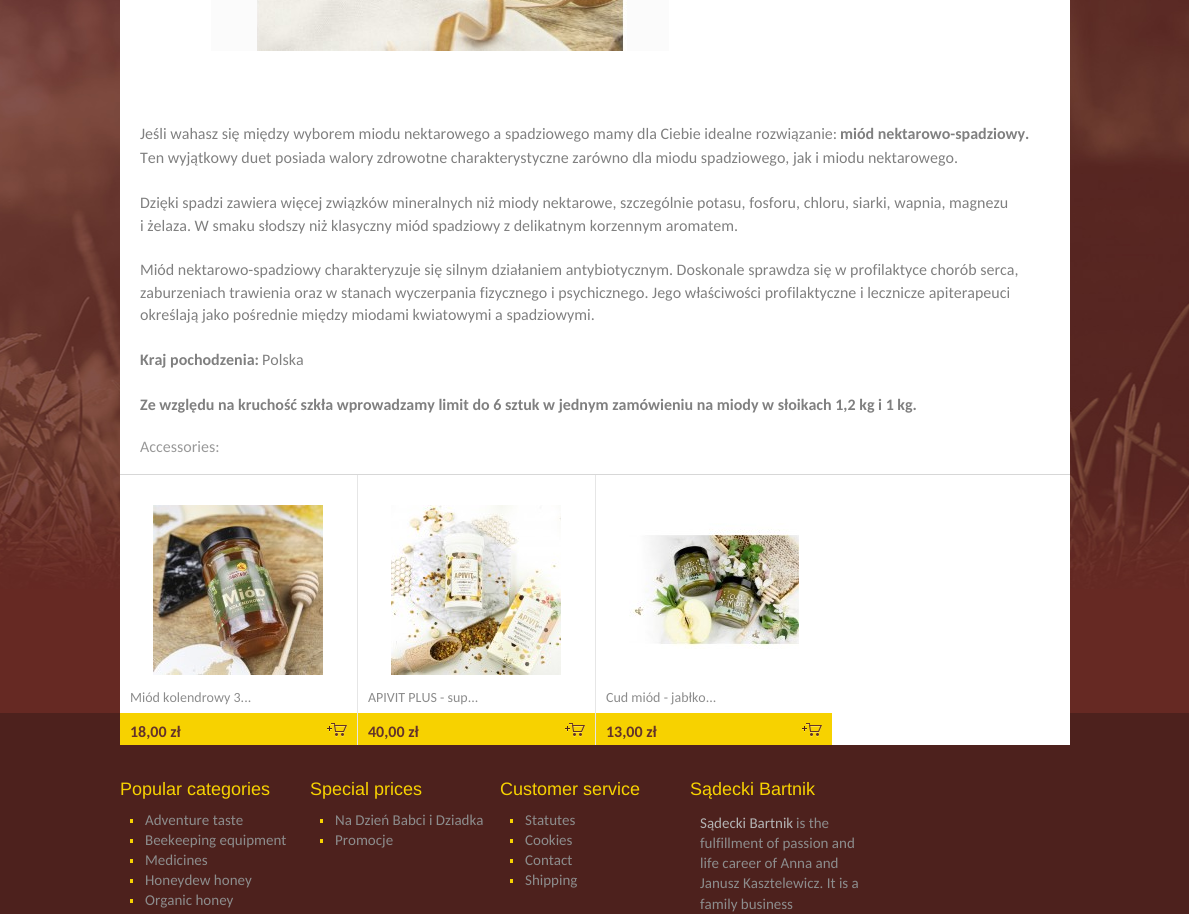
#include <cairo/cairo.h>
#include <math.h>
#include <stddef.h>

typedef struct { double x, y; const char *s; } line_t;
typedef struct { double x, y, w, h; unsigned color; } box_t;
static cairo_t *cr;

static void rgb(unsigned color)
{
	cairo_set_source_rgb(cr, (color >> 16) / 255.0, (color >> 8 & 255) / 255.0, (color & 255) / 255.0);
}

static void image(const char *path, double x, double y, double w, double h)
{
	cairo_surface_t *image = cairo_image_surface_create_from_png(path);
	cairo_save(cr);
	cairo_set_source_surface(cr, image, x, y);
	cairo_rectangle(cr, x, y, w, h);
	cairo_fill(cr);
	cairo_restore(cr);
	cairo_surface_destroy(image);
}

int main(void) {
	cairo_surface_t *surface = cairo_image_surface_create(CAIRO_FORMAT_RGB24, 1189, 914);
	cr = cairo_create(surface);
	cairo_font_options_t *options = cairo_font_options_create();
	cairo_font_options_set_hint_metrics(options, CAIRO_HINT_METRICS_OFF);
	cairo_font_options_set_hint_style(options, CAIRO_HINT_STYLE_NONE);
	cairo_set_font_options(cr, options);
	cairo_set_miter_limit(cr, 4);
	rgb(0x662923);
	cairo_paint(cr);
	image("img/1.png", 0, 0, 1189, 589);
	{
		static const box_t items[] = {
			{0, 713, 1189, 201, 0x4d211d},
			{120, 0, 950, 745, 0xffffff},
			{211, 0, 458, 51, 0xfbfbfb},
		};
		for (size_t i = 0; i < sizeof items / sizeof *items; i++) {
			rgb(items[i].color);
			cairo_rectangle(cr, items[i].x, items[i].y, items[i].w, items[i].h);
			cairo_fill(cr);
		}
	}
	image("img/2.png", 257, 0, 370, 51);
	rgb(0xd7d7d7);
	cairo_rectangle(cr, 120, 474, 950, 1);
	cairo_fill(cr);
	image("img/3.png", 153, 505, 170, 170);
	rgb(0xf7d200);
	cairo_rectangle(cr, 120, 713, 237, 32);
	cairo_fill(cr);
	image("img/4.png", 327, 723, 20, 14);
	rgb(0xe6e6e6);
	cairo_rectangle(cr, 357, 475, 1, 270);
	cairo_fill(cr);
	image("img/5.png", 391, 505, 170, 170);
	rgb(0xf7d200);
	cairo_rectangle(cr, 358, 713, 237, 32);
	cairo_fill(cr);
	image("img/4.png", 565, 723, 20, 14);
	rgb(0xe6e6e6);
	cairo_rectangle(cr, 595, 475, 1, 270);
	cairo_fill(cr);
	image("img/6.png", 629, 523, 170, 126);
	rgb(0xf7d200);
	cairo_rectangle(cr, 596, 713, 236, 32);
	cairo_fill(cr);
	image("img/4.png", 802, 723, 20, 14);
	{
		static const box_t items[] = {
			{130, 819, 3, 4, 0xf7d200},
			{130, 839, 3, 4, 0xf7d200},
			{130, 859, 3, 4, 0xf7d200},
			{130, 879, 3, 4, 0xf7d200},
			{130, 899, 3, 4, 0xf7d200},
			{320, 819, 3, 4, 0xf7d200},
			{320, 839, 3, 4, 0xf7d200},
			{510, 819, 3, 4, 0xf7d200},
			{510, 839, 3, 4, 0xf7d200},
			{510, 859, 3, 4, 0xf7d200},
			{510, 879, 3, 4, 0xf7d200},
		};
		for (size_t i = 0; i < sizeof items / sizeof *items; i++) {
			rgb(items[i].color);
			cairo_rectangle(cr, items[i].x, items[i].y, items[i].w, items[i].h);
			cairo_fill(cr);
		}
	}
	cairo_select_font_face(cr, "Carlito", CAIRO_FONT_SLANT_NORMAL, CAIRO_FONT_WEIGHT_NORMAL);
	cairo_set_font_size(cr, 16);
	rgb(0x808080);
	cairo_move_to(cr, 140, 139);
	cairo_show_text(cr, "Jeśli wahasz się między wyborem miodu nektarowego a spadziowego mamy dla Ciebie idealne rozwiązanie:");
	cairo_select_font_face(cr, "Carlito", CAIRO_FONT_SLANT_NORMAL, CAIRO_FONT_WEIGHT_BOLD);
	cairo_move_to(cr, 840, 139);
	cairo_show_text(cr, "miód nektarowo-spadziowy.");
	cairo_select_font_face(cr, "Carlito", CAIRO_FONT_SLANT_NORMAL, CAIRO_FONT_WEIGHT_NORMAL);
	{
		static const line_t items[] = {
			{140, 163, "Ten wyjątkowy duet posiada walory zdrowotne charakterystyczne zarówno dla miodu spadziowego, jak i miodu nektarowego."},
			{140, 208, "Dzięki spadzi zawiera więcej związków mineralnych niż miody nektarowe, szczególnie potasu, fosforu, chloru, siarki, wapnia, magnezu"},
			{140, 231, "i żelaza. W smaku słodszy niż klasyczny miód spadziowy z delikatnym korzennym aromatem."},
			{140, 275, "Miód nektarowo-spadziowy charakteryzuje się silnym działaniem antybiotycznym. Doskonale sprawdza się w profilaktyce chorób serca,"},
			{140, 298, "zaburzeniach trawienia oraz w stanach wyczerpania fizycznego i psychicznego. Jego właściwości profilaktyczne i lecznicze apiterapeuci"},
			{140, 320, "określają jako pośrednie między miodami kwiatowymi a spadziowymi."},
		};
		for (size_t i = 0; i < sizeof items / sizeof *items; i++) {
			cairo_move_to(cr, items[i].x, items[i].y);
			cairo_show_text(cr, items[i].s);
		}
	}
	cairo_select_font_face(cr, "Carlito", CAIRO_FONT_SLANT_NORMAL, CAIRO_FONT_WEIGHT_BOLD);
	cairo_move_to(cr, 140, 365);
	cairo_show_text(cr, "Kraj pochodzenia:");
	cairo_select_font_face(cr, "Carlito", CAIRO_FONT_SLANT_NORMAL, CAIRO_FONT_WEIGHT_NORMAL);
	cairo_move_to(cr, 262, 365);
	cairo_show_text(cr, "Polska");
	cairo_select_font_face(cr, "Carlito", CAIRO_FONT_SLANT_NORMAL, CAIRO_FONT_WEIGHT_BOLD);
	cairo_move_to(cr, 140, 410);
	cairo_show_text(cr, "Ze względu na kruchość szkła wprowadzamy limit do 6 sztuk w jednym zamówieniu na miody w słoikach 1,2 kg i 1 kg.");
	cairo_select_font_face(cr, "Carlito", CAIRO_FONT_SLANT_NORMAL, CAIRO_FONT_WEIGHT_NORMAL);
	rgb(0x999999);
	cairo_move_to(cr, 140, 452);
	cairo_show_text(cr, "Accessories:");
	cairo_set_font_size(cr, 14);
	rgb(0x8c8c8c);
	cairo_move_to(cr, 130, 702);
	cairo_show_text(cr, "Miód kolendrowy 3...");
	cairo_select_font_face(cr, "Carlito", CAIRO_FONT_SLANT_NORMAL, CAIRO_FONT_WEIGHT_BOLD);
	cairo_set_font_size(cr, 16);
	rgb(0x63332a);
	cairo_move_to(cr, 130, 737);
	cairo_show_text(cr, "18,00 zł");
	cairo_select_font_face(cr, "Carlito", CAIRO_FONT_SLANT_NORMAL, CAIRO_FONT_WEIGHT_NORMAL);
	cairo_set_font_size(cr, 14);
	rgb(0x8c8c8c);
	cairo_move_to(cr, 368, 702);
	cairo_show_text(cr, "APIVIT PLUS - sup...");
	cairo_select_font_face(cr, "Carlito", CAIRO_FONT_SLANT_NORMAL, CAIRO_FONT_WEIGHT_BOLD);
	cairo_set_font_size(cr, 16);
	rgb(0x63332a);
	cairo_move_to(cr, 368, 737);
	cairo_show_text(cr, "40,00 zł");
	cairo_select_font_face(cr, "Carlito", CAIRO_FONT_SLANT_NORMAL, CAIRO_FONT_WEIGHT_NORMAL);
	cairo_set_font_size(cr, 14);
	rgb(0x8c8c8c);
	cairo_move_to(cr, 606, 702);
	cairo_show_text(cr, "Cud miód - jabłko...");
	cairo_select_font_face(cr, "Carlito", CAIRO_FONT_SLANT_NORMAL, CAIRO_FONT_WEIGHT_BOLD);
	cairo_set_font_size(cr, 16);
	rgb(0x63332a);
	cairo_move_to(cr, 606, 737);
	cairo_show_text(cr, "13,00 zł");
	cairo_select_font_face(cr, "Liberation Sans", CAIRO_FONT_SLANT_NORMAL, CAIRO_FONT_WEIGHT_NORMAL);
	cairo_set_font_size(cr, 18);
	rgb(0xf7d200);
	cairo_move_to(cr, 120, 795);
	cairo_show_text(cr, "Popular categories");
	cairo_select_font_face(cr, "Carlito", CAIRO_FONT_SLANT_NORMAL, CAIRO_FONT_WEIGHT_NORMAL);
	cairo_set_font_size(cr, 15);
	rgb(0x8c8c8c);
	{
		static const line_t items[] = {
			{145, 825, "Adventure taste"},
			{145, 845, "Beekeeping equipment"},
			{145, 865, "Medicines"},
			{145, 885, "Honeydew honey"},
			{145, 905, "Organic honey"},
		};
		for (size_t i = 0; i < sizeof items / sizeof *items; i++) {
			cairo_move_to(cr, items[i].x, items[i].y);
			cairo_show_text(cr, items[i].s);
		}
	}
	cairo_select_font_face(cr, "Liberation Sans", CAIRO_FONT_SLANT_NORMAL, CAIRO_FONT_WEIGHT_NORMAL);
	cairo_set_font_size(cr, 18);
	rgb(0xf7d200);
	cairo_move_to(cr, 310, 795);
	cairo_show_text(cr, "Special prices");
	cairo_select_font_face(cr, "Carlito", CAIRO_FONT_SLANT_NORMAL, CAIRO_FONT_WEIGHT_NORMAL);
	cairo_set_font_size(cr, 15);
	rgb(0x8c8c8c);
	cairo_move_to(cr, 335, 825);
	cairo_show_text(cr, "Na Dzień Babci i Dziadka");
	cairo_move_to(cr, 335, 845);
	cairo_show_text(cr, "Promocje");
	cairo_select_font_face(cr, "Liberation Sans", CAIRO_FONT_SLANT_NORMAL, CAIRO_FONT_WEIGHT_NORMAL);
	cairo_set_font_size(cr, 18);
	rgb(0xf7d200);
	cairo_move_to(cr, 500, 795);
	cairo_show_text(cr, "Customer service");
	cairo_select_font_face(cr, "Carlito", CAIRO_FONT_SLANT_NORMAL, CAIRO_FONT_WEIGHT_NORMAL);
	cairo_set_font_size(cr, 15);
	rgb(0x8c8c8c);
	{
		static const line_t items[] = {
			{525, 825, "Statutes"},
			{525, 845, "Cookies"},
			{525, 865, "Contact"},
			{525, 885, "Shipping"},
		};
		for (size_t i = 0; i < sizeof items / sizeof *items; i++) {
			cairo_move_to(cr, items[i].x, items[i].y);
			cairo_show_text(cr, items[i].s);
		}
	}
	cairo_select_font_face(cr, "Liberation Sans", CAIRO_FONT_SLANT_NORMAL, CAIRO_FONT_WEIGHT_NORMAL);
	cairo_set_font_size(cr, 18);
	rgb(0xf7d200);
	cairo_move_to(cr, 690, 795);
	cairo_show_text(cr, "Sądecki Bartnik");
	cairo_select_font_face(cr, "Carlito", CAIRO_FONT_SLANT_NORMAL, CAIRO_FONT_WEIGHT_NORMAL);
	cairo_set_font_size(cr, 15);
	rgb(0xb3b3b3);
	cairo_move_to(cr, 700, 828);
	cairo_show_text(cr, "Sądecki Bartnik");
	rgb(0x8c8c8c);
	{
		static const line_t items[] = {
			{796, 828, "is the"},
			{700, 848, "fulfillment of passion and"},
			{700, 868, "life career of Anna and"},
			{700, 888, "Janusz Kasztelewicz. It is a"},
			{700, 909, "family business"},
		};
		for (size_t i = 0; i < sizeof items / sizeof *items; i++) {
			cairo_move_to(cr, items[i].x, items[i].y);
			cairo_show_text(cr, items[i].s);
		}
	}
	cairo_surface_write_to_png(surface, "page.png");
	cairo_font_options_destroy(options);
	cairo_destroy(cr);
	cairo_surface_destroy(surface);
	return 0;
}
